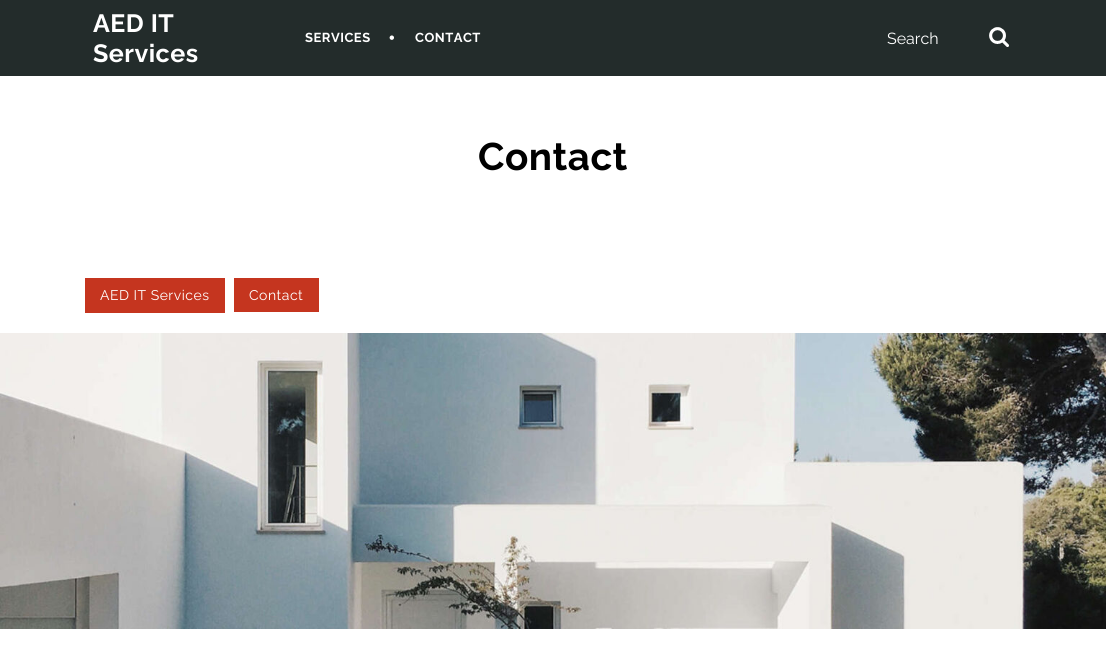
#include <cairo/cairo.h>
#include <math.h>
#include <stddef.h>

static cairo_t *cr;

static void rgb(unsigned color)
{
	cairo_set_source_rgb(cr, (color >> 16) / 255.0, (color >> 8 & 255) / 255.0, (color & 255) / 255.0);
}

static void tracked(double x, double y, const char *s, double letter, double word)
{
	cairo_move_to(cr, x, y);
	while (*s) {
		char ch[5] = {0};
		int n = 0;
		do ch[n++] = *s++; while ((*s & 0xC0) == 0x80);
		cairo_show_text(cr, ch);
		cairo_rel_move_to(cr, letter + word * (*ch == ' '), 0);
	}
}

static void image(const char *path, double x, double y, double w, double h)
{
	cairo_surface_t *image = cairo_image_surface_create_from_png(path);
	cairo_save(cr);
	cairo_set_source_surface(cr, image, x, y);
	cairo_rectangle(cr, x, y, w, h);
	cairo_fill(cr);
	cairo_restore(cr);
	cairo_surface_destroy(image);
}

int main(void) {
	cairo_surface_t *surface = cairo_image_surface_create(CAIRO_FORMAT_RGB24, 1106, 655);
	cr = cairo_create(surface);
	cairo_font_options_t *options = cairo_font_options_create();
	cairo_font_options_set_hint_metrics(options, CAIRO_HINT_METRICS_OFF);
	cairo_font_options_set_hint_style(options, CAIRO_HINT_STYLE_NONE);
	cairo_set_font_options(cr, options);
	cairo_set_miter_limit(cr, 4);
	rgb(0xffffff);
	cairo_paint(cr);
	rgb(0x232c2b);
	cairo_rectangle(cr, 0, 0, 1106, 76);
	cairo_fill(cr);
	image("img/1.png", 989, 27, 20, 20);
	rgb(0xc5351f);
	cairo_rectangle(cr, 85, 278, 140, 35);
	cairo_fill(cr);
	cairo_rectangle(cr, 234, 278, 85, 34);
	cairo_fill(cr);
	image("img/2.png", 0, 333, 1106, 296);
	cairo_select_font_face(cr, "Raleway", CAIRO_FONT_SLANT_NORMAL, CAIRO_FONT_WEIGHT_BOLD);
	cairo_set_font_size(cr, 25);
	rgb(0xffffff);
	tracked(93, 32, "AED IT", 0.5, 0);
	tracked(93, 62, "Services", 0.5, 0);
	cairo_set_font_size(cr, 13);
	tracked(305, 42, "SERVICES", 0.5, 0);
	cairo_set_font_size(cr, 21);
	tracked(388, 45, "•", 0.5, 0);
	cairo_set_font_size(cr, 13);
	tracked(415, 42, "CONTACT", 0.5, 0);
	cairo_select_font_face(cr, "Raleway", CAIRO_FONT_SLANT_NORMAL, CAIRO_FONT_WEIGHT_NORMAL);
	cairo_set_font_size(cr, 16);
	cairo_move_to(cr, 887, 44);
	cairo_show_text(cr, "Search");
	cairo_select_font_face(cr, "Raleway", CAIRO_FONT_SLANT_NORMAL, CAIRO_FONT_WEIGHT_BOLD);
	cairo_set_font_size(cr, 38.5);
	rgb(0x000000);
	tracked(478, 170, "Contact", 0.5, 0);
	cairo_select_font_face(cr, "Raleway", CAIRO_FONT_SLANT_NORMAL, CAIRO_FONT_WEIGHT_NORMAL);
	cairo_set_font_size(cr, 14);
	rgb(0xffffff);
	tracked(100, 300, "AED IT Services", 0.5, 0);
	tracked(249, 300, "Contact", 0.5, 0);
	cairo_surface_write_to_png(surface, "page.png");
	cairo_font_options_destroy(options);
	cairo_destroy(cr);
	cairo_surface_destroy(surface);
	return 0;
}
